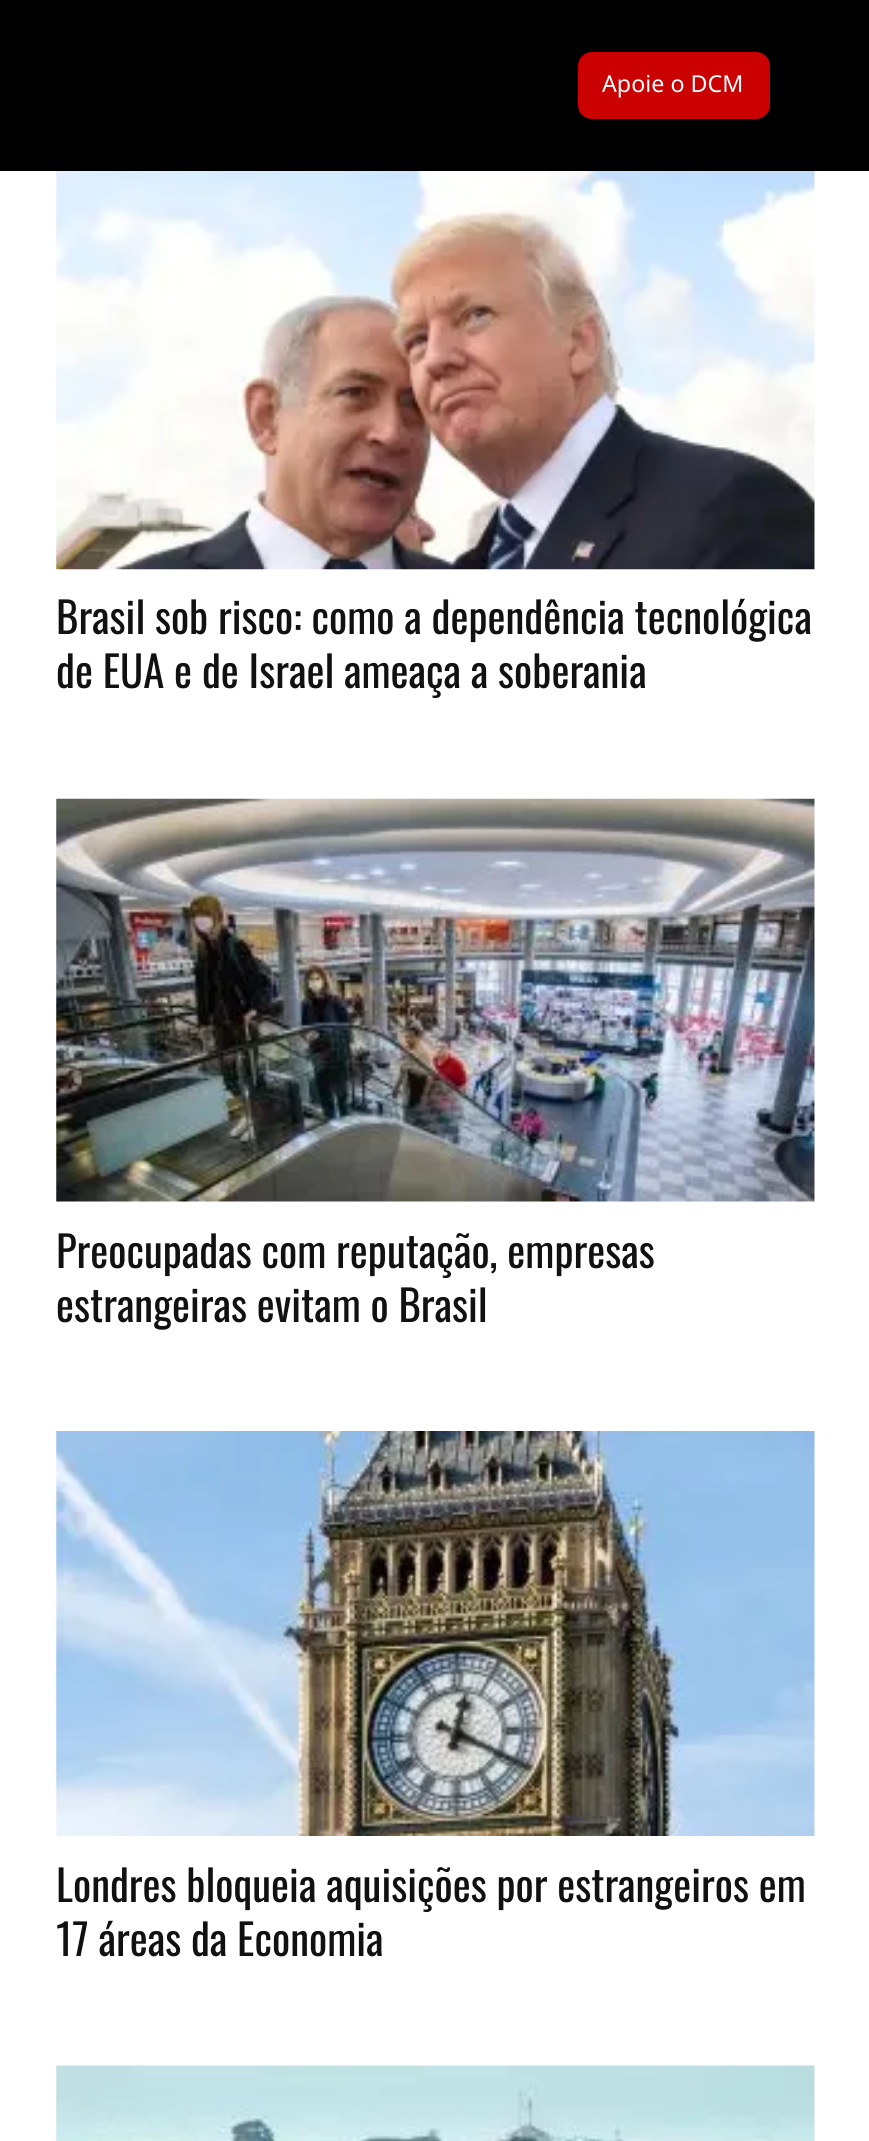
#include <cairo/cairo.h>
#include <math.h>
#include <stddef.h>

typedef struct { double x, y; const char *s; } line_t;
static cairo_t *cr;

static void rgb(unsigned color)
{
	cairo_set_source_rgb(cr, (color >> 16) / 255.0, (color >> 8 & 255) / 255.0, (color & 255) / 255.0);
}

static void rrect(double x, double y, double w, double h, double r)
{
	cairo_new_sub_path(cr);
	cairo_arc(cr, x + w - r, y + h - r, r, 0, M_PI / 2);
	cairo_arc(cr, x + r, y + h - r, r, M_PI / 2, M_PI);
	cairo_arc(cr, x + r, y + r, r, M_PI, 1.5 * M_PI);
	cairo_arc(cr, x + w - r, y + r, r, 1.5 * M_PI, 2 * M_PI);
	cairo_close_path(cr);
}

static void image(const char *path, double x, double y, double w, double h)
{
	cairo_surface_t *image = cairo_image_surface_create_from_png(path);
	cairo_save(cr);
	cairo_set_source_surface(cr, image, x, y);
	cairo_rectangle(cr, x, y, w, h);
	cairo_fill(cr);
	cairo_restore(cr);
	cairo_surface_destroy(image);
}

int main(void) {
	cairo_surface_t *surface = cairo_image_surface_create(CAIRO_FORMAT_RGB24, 869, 2141);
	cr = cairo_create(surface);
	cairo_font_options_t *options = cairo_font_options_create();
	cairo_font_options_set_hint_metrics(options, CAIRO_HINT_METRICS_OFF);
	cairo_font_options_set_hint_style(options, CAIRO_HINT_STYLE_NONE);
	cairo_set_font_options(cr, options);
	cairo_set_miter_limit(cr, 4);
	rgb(0xffffff);
	cairo_paint(cr);
	rgb(0x000000);
	cairo_rectangle(cr, 0, 0, 869, 171);
	cairo_fill(cr);
	rgb(0xcb0000);
	rrect(578, 52, 192, 67, 14);
	cairo_fill(cr);
	image("img/1.png", 56, 171, 759, 399);
	image("img/2.png", 56, 798, 759, 404);
	image("img/3.png", 56, 1431, 759, 405);
	image("img/4.png", 56, 2065, 759, 76);
	cairo_select_font_face(cr, "Noto Sans", CAIRO_FONT_SLANT_NORMAL, CAIRO_FONT_WEIGHT_NORMAL);
	cairo_set_font_size(cr, 23.25);
	rgb(0xffffff);
	cairo_move_to(cr, 602, 92);
	cairo_show_text(cr, "Apoie o DCM");
	cairo_select_font_face(cr, "Oswald", CAIRO_FONT_SLANT_NORMAL, CAIRO_FONT_WEIGHT_NORMAL);
	cairo_set_font_size(cr, 42.75);
	rgb(0x111111);
	{
		static const line_t items[] = {
			{56, 634, "Brasil sob risco: como a dependência tecnológica"},
			{56, 688, "de EUA e de Israel ameaça a soberania"},
			{56, 1268, "Preocupadas com reputação, empresas"},
			{56, 1322, "estrangeiras evitam o Brasil"},
			{56, 1902, "Londres bloqueia aquisições por estrangeiros em"},
			{56, 1956, "17 áreas da Economia"},
		};
		for (size_t i = 0; i < sizeof items / sizeof *items; i++) {
			cairo_move_to(cr, items[i].x, items[i].y);
			cairo_show_text(cr, items[i].s);
		}
	}
	cairo_surface_write_to_png(surface, "page.png");
	cairo_font_options_destroy(options);
	cairo_destroy(cr);
	cairo_surface_destroy(surface);
	return 0;
}
